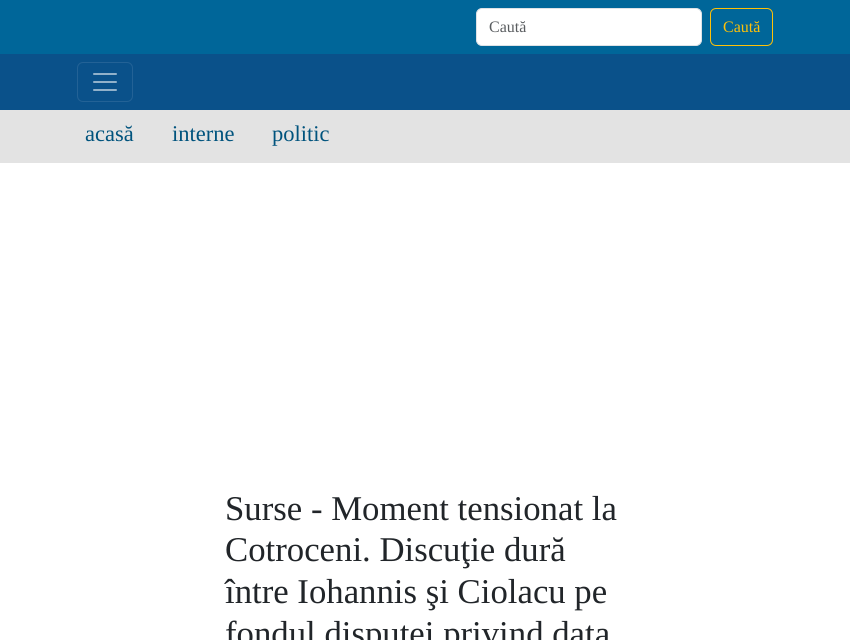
#include <cairo/cairo.h>
#include <math.h>
#include <stddef.h>

typedef struct { double x, y; const char *s; } line_t;
static cairo_t *cr;

static void rgb(unsigned color)
{
	cairo_set_source_rgb(cr, (color >> 16) / 255.0, (color >> 8 & 255) / 255.0, (color & 255) / 255.0);
}

static void rrect(double x, double y, double w, double h, double r)
{
	cairo_new_sub_path(cr);
	cairo_arc(cr, x + w - r, y + h - r, r, 0, M_PI / 2);
	cairo_arc(cr, x + r, y + h - r, r, M_PI / 2, M_PI);
	cairo_arc(cr, x + r, y + r, r, M_PI, 1.5 * M_PI);
	cairo_arc(cr, x + w - r, y + r, r, 1.5 * M_PI, 2 * M_PI);
	cairo_close_path(cr);
}

static void image(const char *path, double x, double y, double w, double h)
{
	cairo_surface_t *image = cairo_image_surface_create_from_png(path);
	cairo_save(cr);
	cairo_set_source_surface(cr, image, x, y);
	cairo_rectangle(cr, x, y, w, h);
	cairo_fill(cr);
	cairo_restore(cr);
	cairo_surface_destroy(image);
}

int main(void) {
	cairo_surface_t *surface = cairo_image_surface_create(CAIRO_FORMAT_RGB24, 850, 640);
	cr = cairo_create(surface);
	cairo_font_options_t *options = cairo_font_options_create();
	cairo_font_options_set_hint_metrics(options, CAIRO_HINT_METRICS_OFF);
	cairo_font_options_set_hint_style(options, CAIRO_HINT_STYLE_NONE);
	cairo_set_font_options(cr, options);
	cairo_set_miter_limit(cr, 4);
	rgb(0xffffff);
	cairo_paint(cr);
	rgb(0x006699);
	cairo_rectangle(cr, 0, 0, 850, 54);
	cairo_fill(cr);
	rgb(0xffffff);
	rrect(476.5, 8.5, 225, 37, 5.5);
	cairo_fill_preserve(cr);
	rgb(0xdee2e6);
	cairo_set_line_width(cr, 1);
	cairo_stroke(cr);
	rrect(710.5, 8.5, 62, 37, 5.5);
	rgb(0xffc107);
	cairo_stroke(cr);
	rgb(0x0a518a);
	cairo_rectangle(cr, 0, 54, 850, 56);
	cairo_fill(cr);
	rrect(77.5, 62.5, 55, 39, 5.5);
	rgb(0x236296);
	cairo_stroke(cr);
	image("img/1.png", 93, 73, 24, 18);
	rgb(0xe3e3e3);
	cairo_rectangle(cr, 0, 110, 850, 53);
	cairo_fill(cr);
	cairo_select_font_face(cr, "Liberation Serif", CAIRO_FONT_SLANT_NORMAL, CAIRO_FONT_WEIGHT_NORMAL);
	cairo_set_font_size(cr, 16);
	rgb(0x595c5f);
	cairo_move_to(cr, 489, 32);
	cairo_show_text(cr, "Caută");
	rgb(0xffc107);
	cairo_move_to(cr, 723, 32);
	cairo_show_text(cr, "Caută");
	cairo_set_font_size(cr, 22.5);
	rgb(0x00537d);
	{
		static const line_t items[] = {
			{85, 141, "acasă"},
			{172, 141, "interne"},
			{272, 141, "politic"},
		};
		for (size_t i = 0; i < sizeof items / sizeof *items; i++) {
			cairo_move_to(cr, items[i].x, items[i].y);
			cairo_show_text(cr, items[i].s);
		}
	}
	cairo_set_font_size(cr, 34.75);
	rgb(0x212529);
	{
		static const line_t items[] = {
			{225, 520, "Surse - Moment tensionat la"},
			{225, 561, "Cotroceni. Discuţie dură"},
			{225, 603, "între Iohannis şi Ciolacu pe"},
			{225, 645, "fondul disputei privind data"},
		};
		for (size_t i = 0; i < sizeof items / sizeof *items; i++) {
			cairo_move_to(cr, items[i].x, items[i].y);
			cairo_show_text(cr, items[i].s);
		}
	}
	cairo_surface_write_to_png(surface, "page.png");
	cairo_font_options_destroy(options);
	cairo_destroy(cr);
	cairo_surface_destroy(surface);
	return 0;
}
